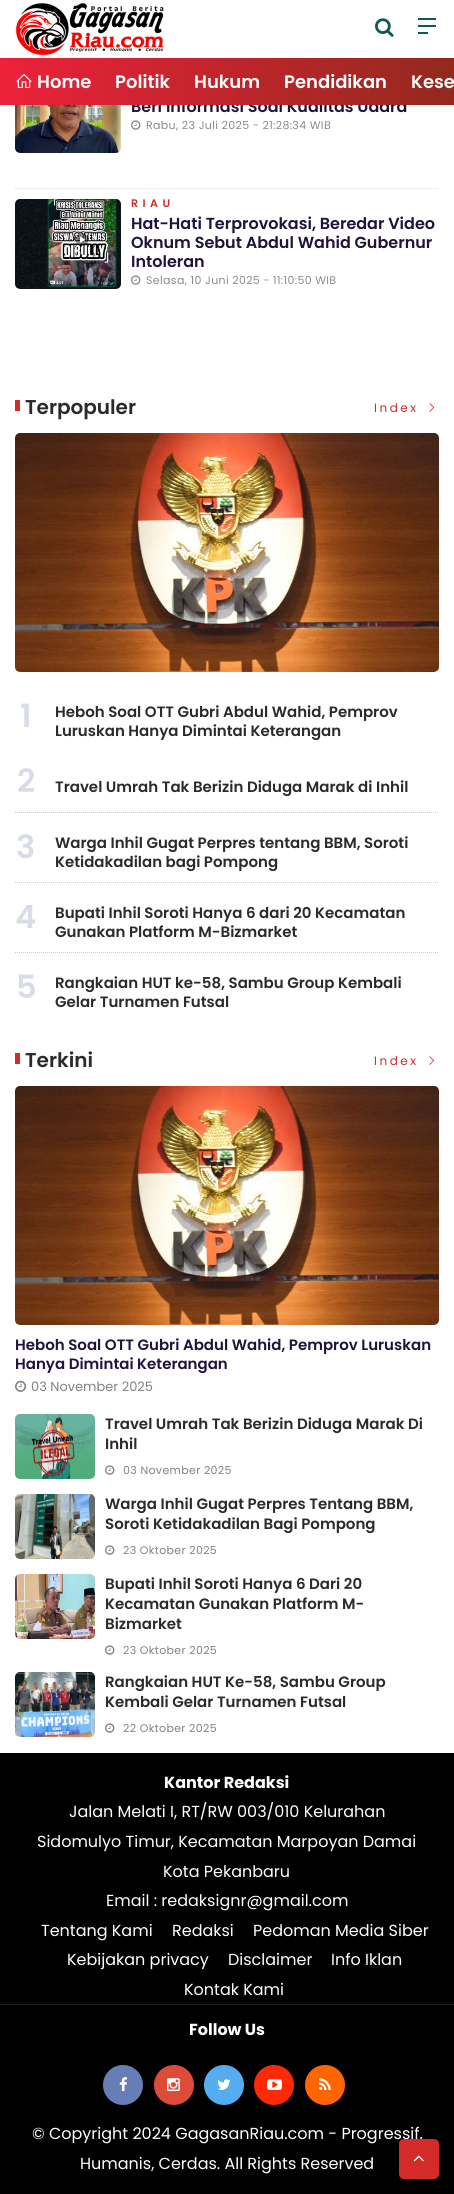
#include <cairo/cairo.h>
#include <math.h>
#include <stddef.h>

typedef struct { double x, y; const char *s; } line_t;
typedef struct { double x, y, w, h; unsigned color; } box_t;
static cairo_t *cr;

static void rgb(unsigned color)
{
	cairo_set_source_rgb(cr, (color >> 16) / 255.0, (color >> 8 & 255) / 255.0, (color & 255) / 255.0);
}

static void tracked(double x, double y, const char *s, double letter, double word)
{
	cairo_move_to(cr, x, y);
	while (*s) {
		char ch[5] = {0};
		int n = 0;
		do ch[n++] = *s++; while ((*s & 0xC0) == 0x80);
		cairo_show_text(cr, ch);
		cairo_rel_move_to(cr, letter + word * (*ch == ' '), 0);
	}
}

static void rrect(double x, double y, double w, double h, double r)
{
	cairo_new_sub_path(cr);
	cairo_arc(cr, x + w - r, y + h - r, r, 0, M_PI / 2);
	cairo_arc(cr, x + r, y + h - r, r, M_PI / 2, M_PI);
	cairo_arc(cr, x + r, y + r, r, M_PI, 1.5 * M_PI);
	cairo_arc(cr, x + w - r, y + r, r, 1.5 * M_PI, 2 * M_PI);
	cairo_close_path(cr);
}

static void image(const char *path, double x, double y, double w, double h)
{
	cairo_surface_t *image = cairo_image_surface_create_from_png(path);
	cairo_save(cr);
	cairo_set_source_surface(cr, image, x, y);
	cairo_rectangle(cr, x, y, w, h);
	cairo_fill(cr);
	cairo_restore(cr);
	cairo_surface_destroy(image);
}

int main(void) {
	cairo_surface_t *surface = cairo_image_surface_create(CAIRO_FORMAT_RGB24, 454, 2194);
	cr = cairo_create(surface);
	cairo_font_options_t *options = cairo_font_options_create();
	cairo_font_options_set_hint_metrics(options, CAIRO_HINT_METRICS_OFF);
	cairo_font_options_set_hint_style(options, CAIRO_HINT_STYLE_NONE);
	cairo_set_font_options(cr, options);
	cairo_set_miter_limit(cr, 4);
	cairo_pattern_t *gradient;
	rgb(0xffffff);
	cairo_paint(cr);
	image("img/1.png", 15, 3, 149, 53);
	image("img/2.png", 375, 18, 19, 19);
	{
		static const box_t items[] = {
			{418, 25, 18, 2, 0x125857},
			{418, 18, 18, 2, 0x125857},
			{418, 32, 10, 2, 0x125857},
		};
		for (size_t i = 0; i < sizeof items / sizeof *items; i++) {
			rgb(items[i].color);
			cairo_rectangle(cr, items[i].x, items[i].y, items[i].w, items[i].h);
			cairo_fill(cr);
		}
	}
	cairo_new_path(cr);
	cairo_move_to(cr, 15, 188.5);
	cairo_line_to(cr, 439, 188.5);
	rgb(0xe4e4e4);
	cairo_set_line_width(cr, 1);
	cairo_set_dash(cr, (double[]){1, 1}, 2, 0);
	cairo_stroke(cr);
	image("img/4.png", 15, 105, 106, 48);
	image("img/5.png", 131, 120, 10, 10);
	image("img/6.png", 15, 199, 106, 90);
	image("img/5.png", 131, 275, 10, 10);
	rgb(0xd32a2a);
	cairo_rectangle(cr, 15, 400, 5, 11);
	cairo_fill(cr);
	image("img/7.png", 429, 403, 6, 9);
	image("img/8.png", 15, 433, 424, 239);
	cairo_new_path(cr);
	cairo_move_to(cr, 15, 812.5);
	cairo_line_to(cr, 439, 812.5);
	rgb(0xcccccc);
	cairo_stroke(cr);
	cairo_new_path(cr);
	cairo_move_to(cr, 15, 882.5);
	cairo_line_to(cr, 439, 882.5);
	cairo_stroke(cr);
	cairo_new_path(cr);
	cairo_move_to(cr, 15, 952.5);
	cairo_line_to(cr, 439, 952.5);
	cairo_stroke(cr);
	rgb(0xd32a2a);
	cairo_rectangle(cr, 15, 1053, 5, 11);
	cairo_fill(cr);
	image("img/7.png", 429, 1056, 6, 9);
	image("img/8.png", 15, 1086, 424, 239);
	image("img/9.png", 15, 1380, 12, 12);
	image("img/10.png", 15, 1414, 80, 65);
	image("img/11.png", 105, 1465, 10, 10);
	image("img/12.png", 15, 1494, 80, 65);
	image("img/11.png", 105, 1545, 10, 10);
	image("img/13.png", 15, 1574, 80, 65);
	image("img/11.png", 105, 1645, 10, 10);
	image("img/14.png", 15, 1672, 80, 65);
	image("img/11.png", 105, 1723, 10, 10);
	rgb(0x000000);
	cairo_rectangle(cr, 0, 1753, 454, 441);
	cairo_fill(cr);
	rgb(0x222222);
	cairo_rectangle(cr, 0, 2004, 454, 1);
	cairo_fill(cr);
	rgb(0x667db6);
	cairo_arc(cr, 123, 2085, 20, 0, 2 * M_PI);
	cairo_fill(cr);
	image("img/15.png", 119, 2077, 9, 15);
	rgb(0xdd4b39);
	cairo_arc(cr, 174, 2085, 20, 0, 2 * M_PI);
	cairo_fill(cr);
	image("img/16.png", 167, 2078, 13, 14);
	rgb(0x55acee);
	cairo_arc(cr, 224, 2085, 20, 0, 2 * M_PI);
	cairo_fill(cr);
	image("img/17.png", 217, 2079, 14, 11);
	rgb(0xfe2905);
	cairo_arc(cr, 274, 2085, 20, 0, 2 * M_PI);
	cairo_fill(cr);
	image("img/18.png", 267, 2079, 15, 11);
	rgb(0xff6600);
	cairo_arc(cr, 325, 2085, 20, 0, 2 * M_PI);
	cairo_fill(cr);
	image("img/19.png", 319, 2078, 12, 12);
	cairo_select_font_face(cr, "Poppins SemiBold", CAIRO_FONT_SLANT_NORMAL, CAIRO_FONT_WEIGHT_NORMAL);
	cairo_set_font_size(cr, 16);
	rgb(0x20123a);
	cairo_move_to(cr, 131, 112);
	cairo_show_text(cr, "Beri Informasi Soal Kualitas Udara");
	gradient = cairo_pattern_create_linear(454, 82, 0, 81);
	cairo_pattern_add_color_stop_rgba(gradient, 0, 0.576, 0.161, 0.118, 1);
	cairo_pattern_add_color_stop_rgba(gradient, 1, 0.929, 0.129, 0.227, 1);
	cairo_set_source(cr, gradient);
	cairo_pattern_destroy(gradient);
	cairo_rectangle(cr, 0, 58, 454, 47);
	cairo_fill(cr);
	cairo_set_font_size(cr, 18);
	rgb(0xffffff);
	{
		static const line_t items[] = {
			{411, 88, "Kese"},
			{284, 88, "Pendidikan"},
			{194, 88, "Hukum"},
			{115, 88, "Politik"},
			{37, 88, "Home"},
		};
		for (size_t i = 0; i < sizeof items / sizeof *items; i++) {
			cairo_move_to(cr, items[i].x, items[i].y);
			cairo_show_text(cr, items[i].s);
		}
	}
	image("img/3.png", 16, 73, 16, 15);
	cairo_select_font_face(cr, "Poppins", CAIRO_FONT_SLANT_NORMAL, CAIRO_FONT_WEIGHT_NORMAL);
	cairo_set_font_size(cr, 11);
	rgb(0x908888);
	tracked(146, 129, "Rabu, 23 Juli 2025 - 21:28:34 WIB", 0.35, 0);
	cairo_select_font_face(cr, "Poppins SemiBold", CAIRO_FONT_SLANT_NORMAL, CAIRO_FONT_WEIGHT_NORMAL);
	rgb(0xd32a2a);
	tracked(131, 207, "RIAU", 4.5, 0);
	cairo_set_font_size(cr, 16);
	rgb(0x20123a);
	{
		static const line_t items[] = {
			{131, 229, "Hat-Hati Terprovokasi, Beredar Video"},
			{131, 248, "Oknum Sebut Abdul Wahid Gubernur"},
			{131, 267, "Intoleran"},
		};
		for (size_t i = 0; i < sizeof items / sizeof *items; i++) {
			cairo_move_to(cr, items[i].x, items[i].y);
			cairo_show_text(cr, items[i].s);
		}
	}
	cairo_select_font_face(cr, "Poppins", CAIRO_FONT_SLANT_NORMAL, CAIRO_FONT_WEIGHT_NORMAL);
	cairo_set_font_size(cr, 11);
	rgb(0x908888);
	tracked(146, 284, "Selasa, 10 Juni 2025 - 11:10:50 WIB", 0.35, 0);
	cairo_select_font_face(cr, "Poppins SemiBold", CAIRO_FONT_SLANT_NORMAL, CAIRO_FONT_WEIGHT_NORMAL);
	cairo_set_font_size(cr, 20);
	rgb(0x2a2a2a);
	cairo_move_to(cr, 25, 414);
	cairo_show_text(cr, "Terpopuler");
	cairo_select_font_face(cr, "Poppins", CAIRO_FONT_SLANT_NORMAL, CAIRO_FONT_WEIGHT_NORMAL);
	cairo_set_font_size(cr, 12);
	rgb(0xd32a2a);
	tracked(374, 412, "Index", 2.5, 0);
	cairo_select_font_face(cr, "Poppins SemiBold", CAIRO_FONT_SLANT_NORMAL, CAIRO_FONT_WEIGHT_NORMAL);
	cairo_set_font_size(cr, 32);
	rgb(0xd9dbe9);
	cairo_move_to(cr, 20, 727);
	cairo_show_text(cr, "1");
	cairo_set_font_size(cr, 15);
	rgb(0x2a2a2a);
	cairo_move_to(cr, 55, 717);
	cairo_show_text(cr, "Heboh Soal OTT Gubri Abdul Wahid, Pemprov");
	cairo_move_to(cr, 55, 736);
	cairo_show_text(cr, "Luruskan Hanya Dimintai Keterangan");
	cairo_set_font_size(cr, 32);
	rgb(0xd9dbe9);
	cairo_move_to(cr, 17, 792);
	cairo_show_text(cr, "2");
	cairo_set_font_size(cr, 15);
	rgb(0x2a2a2a);
	cairo_move_to(cr, 55, 792);
	cairo_show_text(cr, "Travel Umrah Tak Berizin Diduga Marak di Inhil");
	cairo_set_font_size(cr, 32);
	rgb(0xd9dbe9);
	cairo_move_to(cr, 16, 858);
	cairo_show_text(cr, "3");
	cairo_set_font_size(cr, 15);
	rgb(0x2a2a2a);
	cairo_move_to(cr, 55, 848);
	cairo_show_text(cr, "Warga Inhil Gugat Perpres tentang BBM, Soroti");
	cairo_move_to(cr, 55, 867);
	cairo_show_text(cr, "Ketidakadilan bagi Pompong");
	cairo_set_font_size(cr, 32);
	rgb(0xd9dbe9);
	cairo_move_to(cr, 15, 928);
	cairo_show_text(cr, "4");
	cairo_set_font_size(cr, 15);
	rgb(0x2a2a2a);
	cairo_move_to(cr, 55, 918);
	cairo_show_text(cr, "Bupati Inhil Soroti Hanya 6 dari 20 Kecamatan");
	cairo_move_to(cr, 55, 937);
	cairo_show_text(cr, "Gunakan Platform M-Bizmarket");
	cairo_set_font_size(cr, 32);
	rgb(0xd9dbe9);
	cairo_move_to(cr, 16, 998);
	cairo_show_text(cr, "5");
	cairo_set_font_size(cr, 15);
	rgb(0x2a2a2a);
	cairo_move_to(cr, 55, 988);
	cairo_show_text(cr, "Rangkaian HUT ke-58, Sambu Group Kembali");
	cairo_move_to(cr, 55, 1007);
	cairo_show_text(cr, "Gelar Turnamen Futsal");
	cairo_set_font_size(cr, 20);
	cairo_move_to(cr, 25, 1067);
	cairo_show_text(cr, "Terkini");
	cairo_select_font_face(cr, "Poppins", CAIRO_FONT_SLANT_NORMAL, CAIRO_FONT_WEIGHT_NORMAL);
	cairo_set_font_size(cr, 12);
	rgb(0xd32a2a);
	tracked(374, 1065, "Index", 2.5, 0);
	cairo_select_font_face(cr, "Poppins SemiBold", CAIRO_FONT_SLANT_NORMAL, CAIRO_FONT_WEIGHT_NORMAL);
	cairo_set_font_size(cr, 15);
	rgb(0x20123a);
	cairo_move_to(cr, 15, 1350);
	cairo_show_text(cr, "Heboh Soal OTT Gubri Abdul Wahid, Pemprov Luruskan");
	cairo_move_to(cr, 15, 1369);
	cairo_show_text(cr, "Hanya Dimintai Keterangan");
	cairo_select_font_face(cr, "Poppins", CAIRO_FONT_SLANT_NORMAL, CAIRO_FONT_WEIGHT_NORMAL);
	cairo_set_font_size(cr, 13);
	rgb(0x818181);
	cairo_move_to(cr, 31, 1391);
	cairo_show_text(cr, "03 November 2025");
	cairo_select_font_face(cr, "Poppins SemiBold", CAIRO_FONT_SLANT_NORMAL, CAIRO_FONT_WEIGHT_NORMAL);
	cairo_set_font_size(cr, 15);
	rgb(0x2a2a2a);
	cairo_move_to(cr, 105, 1429);
	cairo_show_text(cr, "Travel Umrah Tak Berizin Diduga Marak Di");
	cairo_move_to(cr, 105, 1449);
	cairo_show_text(cr, "Inhil");
	cairo_select_font_face(cr, "Poppins", CAIRO_FONT_SLANT_NORMAL, CAIRO_FONT_WEIGHT_NORMAL);
	cairo_set_font_size(cr, 11);
	rgb(0x818181);
	tracked(123, 1474, "03 November 2025", 0.35, 0);
	cairo_select_font_face(cr, "Poppins SemiBold", CAIRO_FONT_SLANT_NORMAL, CAIRO_FONT_WEIGHT_NORMAL);
	cairo_set_font_size(cr, 15);
	rgb(0x2a2a2a);
	cairo_move_to(cr, 105, 1509);
	cairo_show_text(cr, "Warga Inhil Gugat Perpres Tentang BBM,");
	cairo_move_to(cr, 105, 1529);
	cairo_show_text(cr, "Soroti Ketidakadilan Bagi Pompong");
	cairo_select_font_face(cr, "Poppins", CAIRO_FONT_SLANT_NORMAL, CAIRO_FONT_WEIGHT_NORMAL);
	cairo_set_font_size(cr, 11);
	rgb(0x818181);
	tracked(123, 1554, "23 Oktober 2025", 0.35, 0);
	cairo_select_font_face(cr, "Poppins SemiBold", CAIRO_FONT_SLANT_NORMAL, CAIRO_FONT_WEIGHT_NORMAL);
	cairo_set_font_size(cr, 15);
	rgb(0x2a2a2a);
	{
		static const line_t items[] = {
			{105, 1589, "Bupati Inhil Soroti Hanya 6 Dari 20"},
			{105, 1609, "Kecamatan Gunakan Platform M-"},
			{105, 1629, "Bizmarket"},
		};
		for (size_t i = 0; i < sizeof items / sizeof *items; i++) {
			cairo_move_to(cr, items[i].x, items[i].y);
			cairo_show_text(cr, items[i].s);
		}
	}
	cairo_select_font_face(cr, "Poppins", CAIRO_FONT_SLANT_NORMAL, CAIRO_FONT_WEIGHT_NORMAL);
	cairo_set_font_size(cr, 11);
	rgb(0x818181);
	tracked(123, 1654, "23 Oktober 2025", 0.35, 0);
	cairo_select_font_face(cr, "Poppins SemiBold", CAIRO_FONT_SLANT_NORMAL, CAIRO_FONT_WEIGHT_NORMAL);
	cairo_set_font_size(cr, 15);
	rgb(0x2a2a2a);
	cairo_move_to(cr, 105, 1687);
	cairo_show_text(cr, "Rangkaian HUT Ke-58, Sambu Group");
	cairo_move_to(cr, 105, 1707);
	cairo_show_text(cr, "Kembali Gelar Turnamen Futsal");
	cairo_select_font_face(cr, "Poppins", CAIRO_FONT_SLANT_NORMAL, CAIRO_FONT_WEIGHT_NORMAL);
	cairo_set_font_size(cr, 11);
	rgb(0x818181);
	tracked(123, 1732, "22 Oktober 2025", 0.35, 0);
	cairo_select_font_face(cr, "Poppins", CAIRO_FONT_SLANT_NORMAL, CAIRO_FONT_WEIGHT_BOLD);
	cairo_set_font_size(cr, 16);
	rgb(0xffffff);
	cairo_move_to(cr, 164, 1788);
	cairo_show_text(cr, "Kantor Redaksi");
	cairo_select_font_face(cr, "Poppins", CAIRO_FONT_SLANT_NORMAL, CAIRO_FONT_WEIGHT_NORMAL);
	{
		static const line_t items[] = {
			{69, 1817, "Jalan Melati I, RT/RW 003/010 Kelurahan"},
			{37, 1847, "Sidomulyo Timur, Kecamatan Marpoyan Damai"},
			{163, 1877, "Kota Pekanbaru"},
			{106, 1906, "Email : redaksignr@gmail.com"},
			{41, 1936, "Tentang Kami"},
			{172, 1936, "Redaksi"},
			{253, 1936, "Pedoman Media Siber"},
			{67, 1965, "Kebijakan privacy"},
			{228, 1965, "Disclaimer"},
			{331, 1965, "Info Iklan"},
			{184, 1995, "Kontak Kami"},
		};
		for (size_t i = 0; i < sizeof items / sizeof *items; i++) {
			cairo_move_to(cr, items[i].x, items[i].y);
			cairo_show_text(cr, items[i].s);
		}
	}
	cairo_select_font_face(cr, "Poppins", CAIRO_FONT_SLANT_NORMAL, CAIRO_FONT_WEIGHT_BOLD);
	cairo_move_to(cr, 189, 2035);
	cairo_show_text(cr, "Follow Us");
	cairo_select_font_face(cr, "Poppins", CAIRO_FONT_SLANT_NORMAL, CAIRO_FONT_WEIGHT_NORMAL);
	cairo_move_to(cr, 32, 2139);
	cairo_show_text(cr, "© Copyright 2024 GagasanRiau.com - Progressif,");
	cairo_move_to(cr, 80, 2169);
	cairo_show_text(cr, "Humanis, Cerdas. All Rights Reserved");
	rgb(0xd32a2a);
	rrect(399, 2139, 40, 40, 5);
	cairo_fill(cr);
	image("img/20.png", 413, 2155, 11, 7);
	cairo_surface_write_to_png(surface, "page.png");
	cairo_font_options_destroy(options);
	cairo_destroy(cr);
	cairo_surface_destroy(surface);
	return 0;
}
